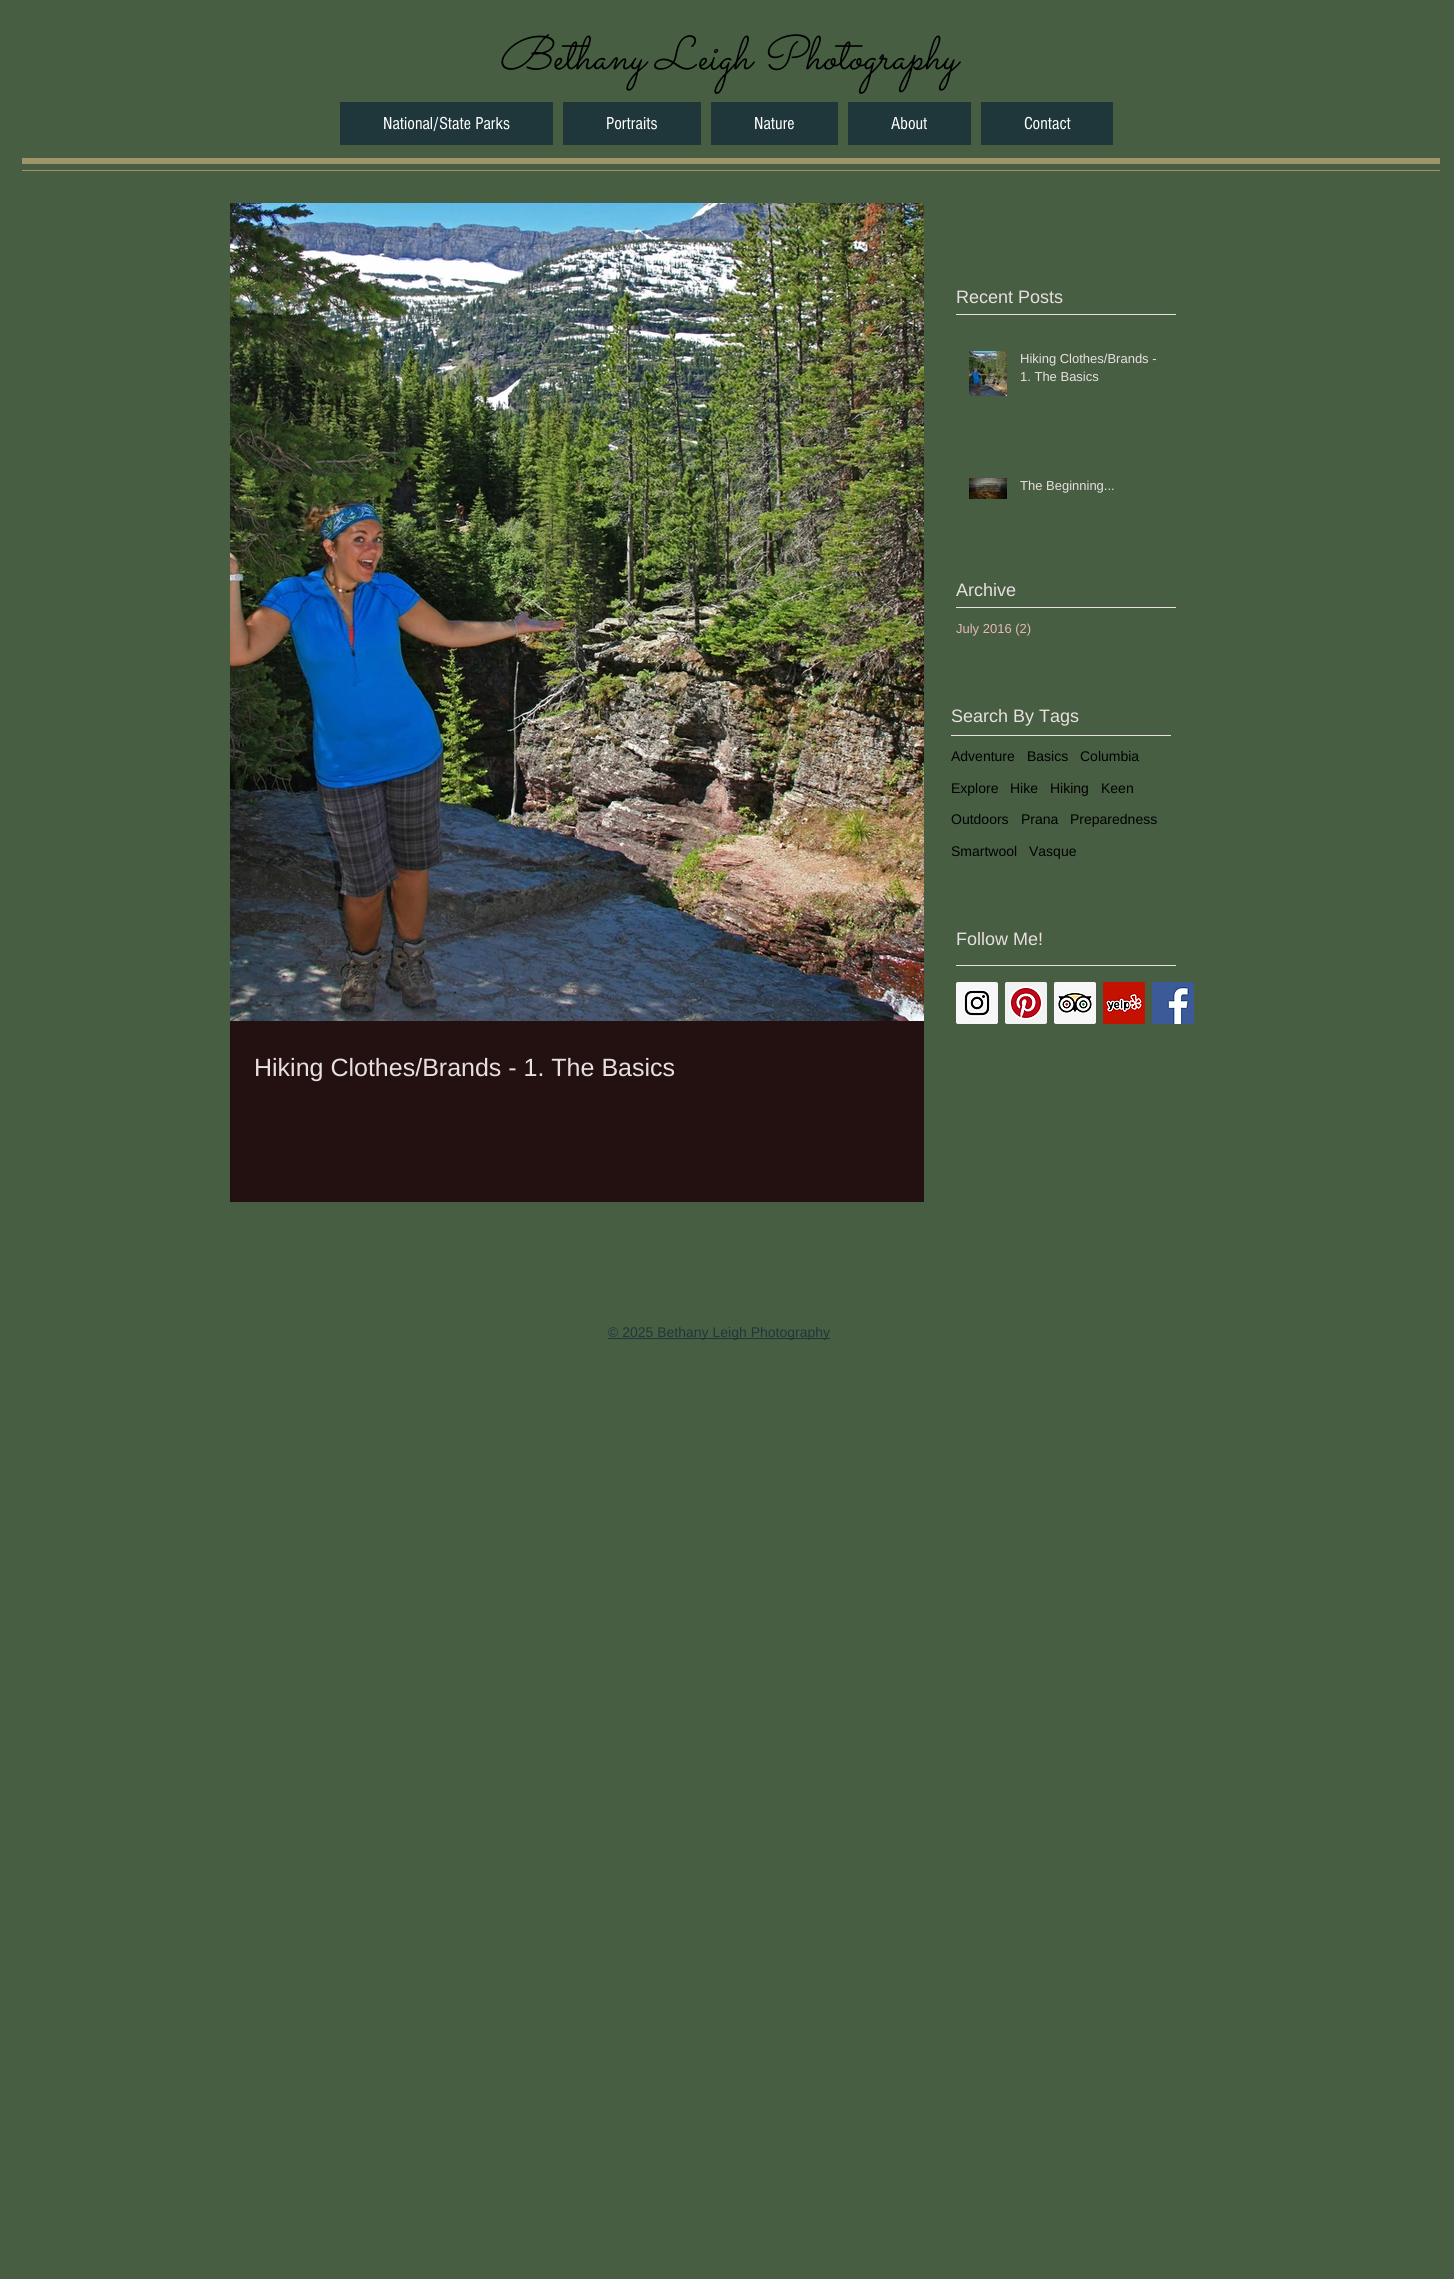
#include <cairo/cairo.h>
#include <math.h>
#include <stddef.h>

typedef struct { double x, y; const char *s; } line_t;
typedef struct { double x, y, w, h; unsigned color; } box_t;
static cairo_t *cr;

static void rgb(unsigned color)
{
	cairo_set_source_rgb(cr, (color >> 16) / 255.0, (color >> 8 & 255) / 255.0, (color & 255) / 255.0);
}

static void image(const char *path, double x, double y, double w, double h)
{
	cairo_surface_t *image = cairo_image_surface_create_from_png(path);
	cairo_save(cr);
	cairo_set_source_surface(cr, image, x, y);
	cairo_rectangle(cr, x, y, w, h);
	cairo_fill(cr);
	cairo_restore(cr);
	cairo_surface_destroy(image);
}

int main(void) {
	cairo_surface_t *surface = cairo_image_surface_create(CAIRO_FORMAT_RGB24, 1454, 2279);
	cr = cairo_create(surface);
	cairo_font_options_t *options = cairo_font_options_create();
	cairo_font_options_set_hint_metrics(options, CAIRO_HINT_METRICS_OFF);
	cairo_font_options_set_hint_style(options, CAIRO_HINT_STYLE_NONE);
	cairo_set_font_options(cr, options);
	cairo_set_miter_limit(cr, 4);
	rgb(0x475e43);
	cairo_paint(cr);
	{
		static const box_t items[] = {
			{340, 102, 213, 43, 0x1f373b},
			{563, 102, 138, 43, 0x1f373b},
			{711, 102, 127, 43, 0x1f373b},
			{848, 102, 123, 43, 0x1f373b},
			{981, 102, 132, 43, 0x1f373b},
			{22, 158, 1418, 6, 0x9e966a},
			{22, 170, 1418, 1, 0x9e966a},
			{956, 314, 220, 1, 0xe8dfdf},
		};
		for (size_t i = 0; i < sizeof items / sizeof *items; i++) {
			rgb(items[i].color);
			cairo_rectangle(cr, items[i].x, items[i].y, items[i].w, items[i].h);
			cairo_fill(cr);
		}
	}
	image("img/1.png", 969, 351, 38, 45);
	image("img/2.png", 969, 478, 38, 21);
	{
		static const box_t items[] = {
			{956, 607, 220, 1, 0xe8dfdf},
			{951, 735, 220, 1, 0xe8dfdf},
			{956, 965, 220, 1, 0xe8dfdf},
		};
		for (size_t i = 0; i < sizeof items / sizeof *items; i++) {
			rgb(items[i].color);
			cairo_rectangle(cr, items[i].x, items[i].y, items[i].w, items[i].h);
			cairo_fill(cr);
		}
	}
	image("img/3.png", 956, 982, 42, 42);
	image("img/4.png", 1005, 982, 42, 42);
	image("img/5.png", 1054, 982, 42, 42);
	image("img/6.png", 1103, 982, 42, 42);
	image("img/7.png", 1152, 982, 42, 42);
	rgb(0x231111);
	cairo_rectangle(cr, 230, 1021, 694, 181);
	cairo_fill(cr);
	image("img/8.png", 230, 203, 694, 818);
	rgb(0x1f373b);
	cairo_rectangle(cr, 608, 1338, 222, 1);
	cairo_fill(cr);
	cairo_select_font_face(cr, "Sacramento", CAIRO_FONT_SLANT_ITALIC, CAIRO_FONT_WEIGHT_NORMAL);
	cairo_set_font_size(cr, 47);
	rgb(0x000000);
	cairo_move_to(cr, 498, 69);
	cairo_show_text(cr, "Bethany Leigh Photography");
	cairo_select_font_face(cr, "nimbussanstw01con", CAIRO_FONT_SLANT_NORMAL, CAIRO_FONT_WEIGHT_NORMAL);
	cairo_set_font_size(cr, 18);
	rgb(0xffffff);
	{
		static const line_t items[] = {
			{383, 129, "National/State Parks"},
			{606, 129, "Portraits"},
			{754, 129, "Nature"},
			{891, 129, "About"},
			{1024, 129, "Contact"},
		};
		for (size_t i = 0; i < sizeof items / sizeof *items; i++) {
			cairo_move_to(cr, items[i].x, items[i].y);
			cairo_show_text(cr, items[i].s);
		}
	}
	cairo_select_font_face(cr, "Liberation Sans", CAIRO_FONT_SLANT_NORMAL, CAIRO_FONT_WEIGHT_NORMAL);
	rgb(0xe8dfdf);
	cairo_move_to(cr, 956, 303);
	cairo_show_text(cr, "Recent Posts");
	cairo_set_font_size(cr, 13);
	{
		static const line_t items[] = {
			{1020, 363, "Hiking Clothes/Brands -"},
			{1020, 381, "1. The Basics"},
			{1020, 490, "The Beginning..."},
		};
		for (size_t i = 0; i < sizeof items / sizeof *items; i++) {
			cairo_move_to(cr, items[i].x, items[i].y);
			cairo_show_text(cr, items[i].s);
		}
	}
	cairo_set_font_size(cr, 18);
	cairo_move_to(cr, 956, 596);
	cairo_show_text(cr, "Archive");
	cairo_set_font_size(cr, 13);
	rgb(0xe4b9b9);
	cairo_move_to(cr, 956, 633);
	cairo_show_text(cr, "July 2016 (2)");
	cairo_set_font_size(cr, 18);
	rgb(0xe8dfdf);
	cairo_move_to(cr, 951, 722);
	cairo_show_text(cr, "Search By Tags");
	cairo_set_font_size(cr, 14);
	rgb(0x000000);
	{
		static const line_t items[] = {
			{951, 761, "Adventure"},
			{1027, 761, "Basics"},
			{1080, 761, "Columbia"},
			{951, 793, "Explore"},
			{1010, 793, "Hike"},
			{1050, 793, "Hiking"},
			{1101, 793, "Keen"},
			{951, 824, "Outdoors"},
			{1021, 824, "Prana"},
			{1070, 824, "Preparedness"},
			{951, 856, "Smartwool"},
			{1029, 856, "Vasque"},
		};
		for (size_t i = 0; i < sizeof items / sizeof *items; i++) {
			cairo_move_to(cr, items[i].x, items[i].y);
			cairo_show_text(cr, items[i].s);
		}
	}
	cairo_set_font_size(cr, 18);
	rgb(0xe8dfdf);
	cairo_move_to(cr, 956, 945);
	cairo_show_text(cr, "Follow Me!");
	cairo_set_font_size(cr, 25);
	cairo_move_to(cr, 254, 1076);
	cairo_show_text(cr, "Hiking Clothes/Brands - 1. The Basics");
	cairo_set_font_size(cr, 14);
	rgb(0x1f373b);
	cairo_move_to(cr, 608, 1337);
	cairo_show_text(cr, "© 2025 Bethany Leigh Photography");
	cairo_surface_write_to_png(surface, "page.png");
	cairo_font_options_destroy(options);
	cairo_destroy(cr);
	cairo_surface_destroy(surface);
	return 0;
}
